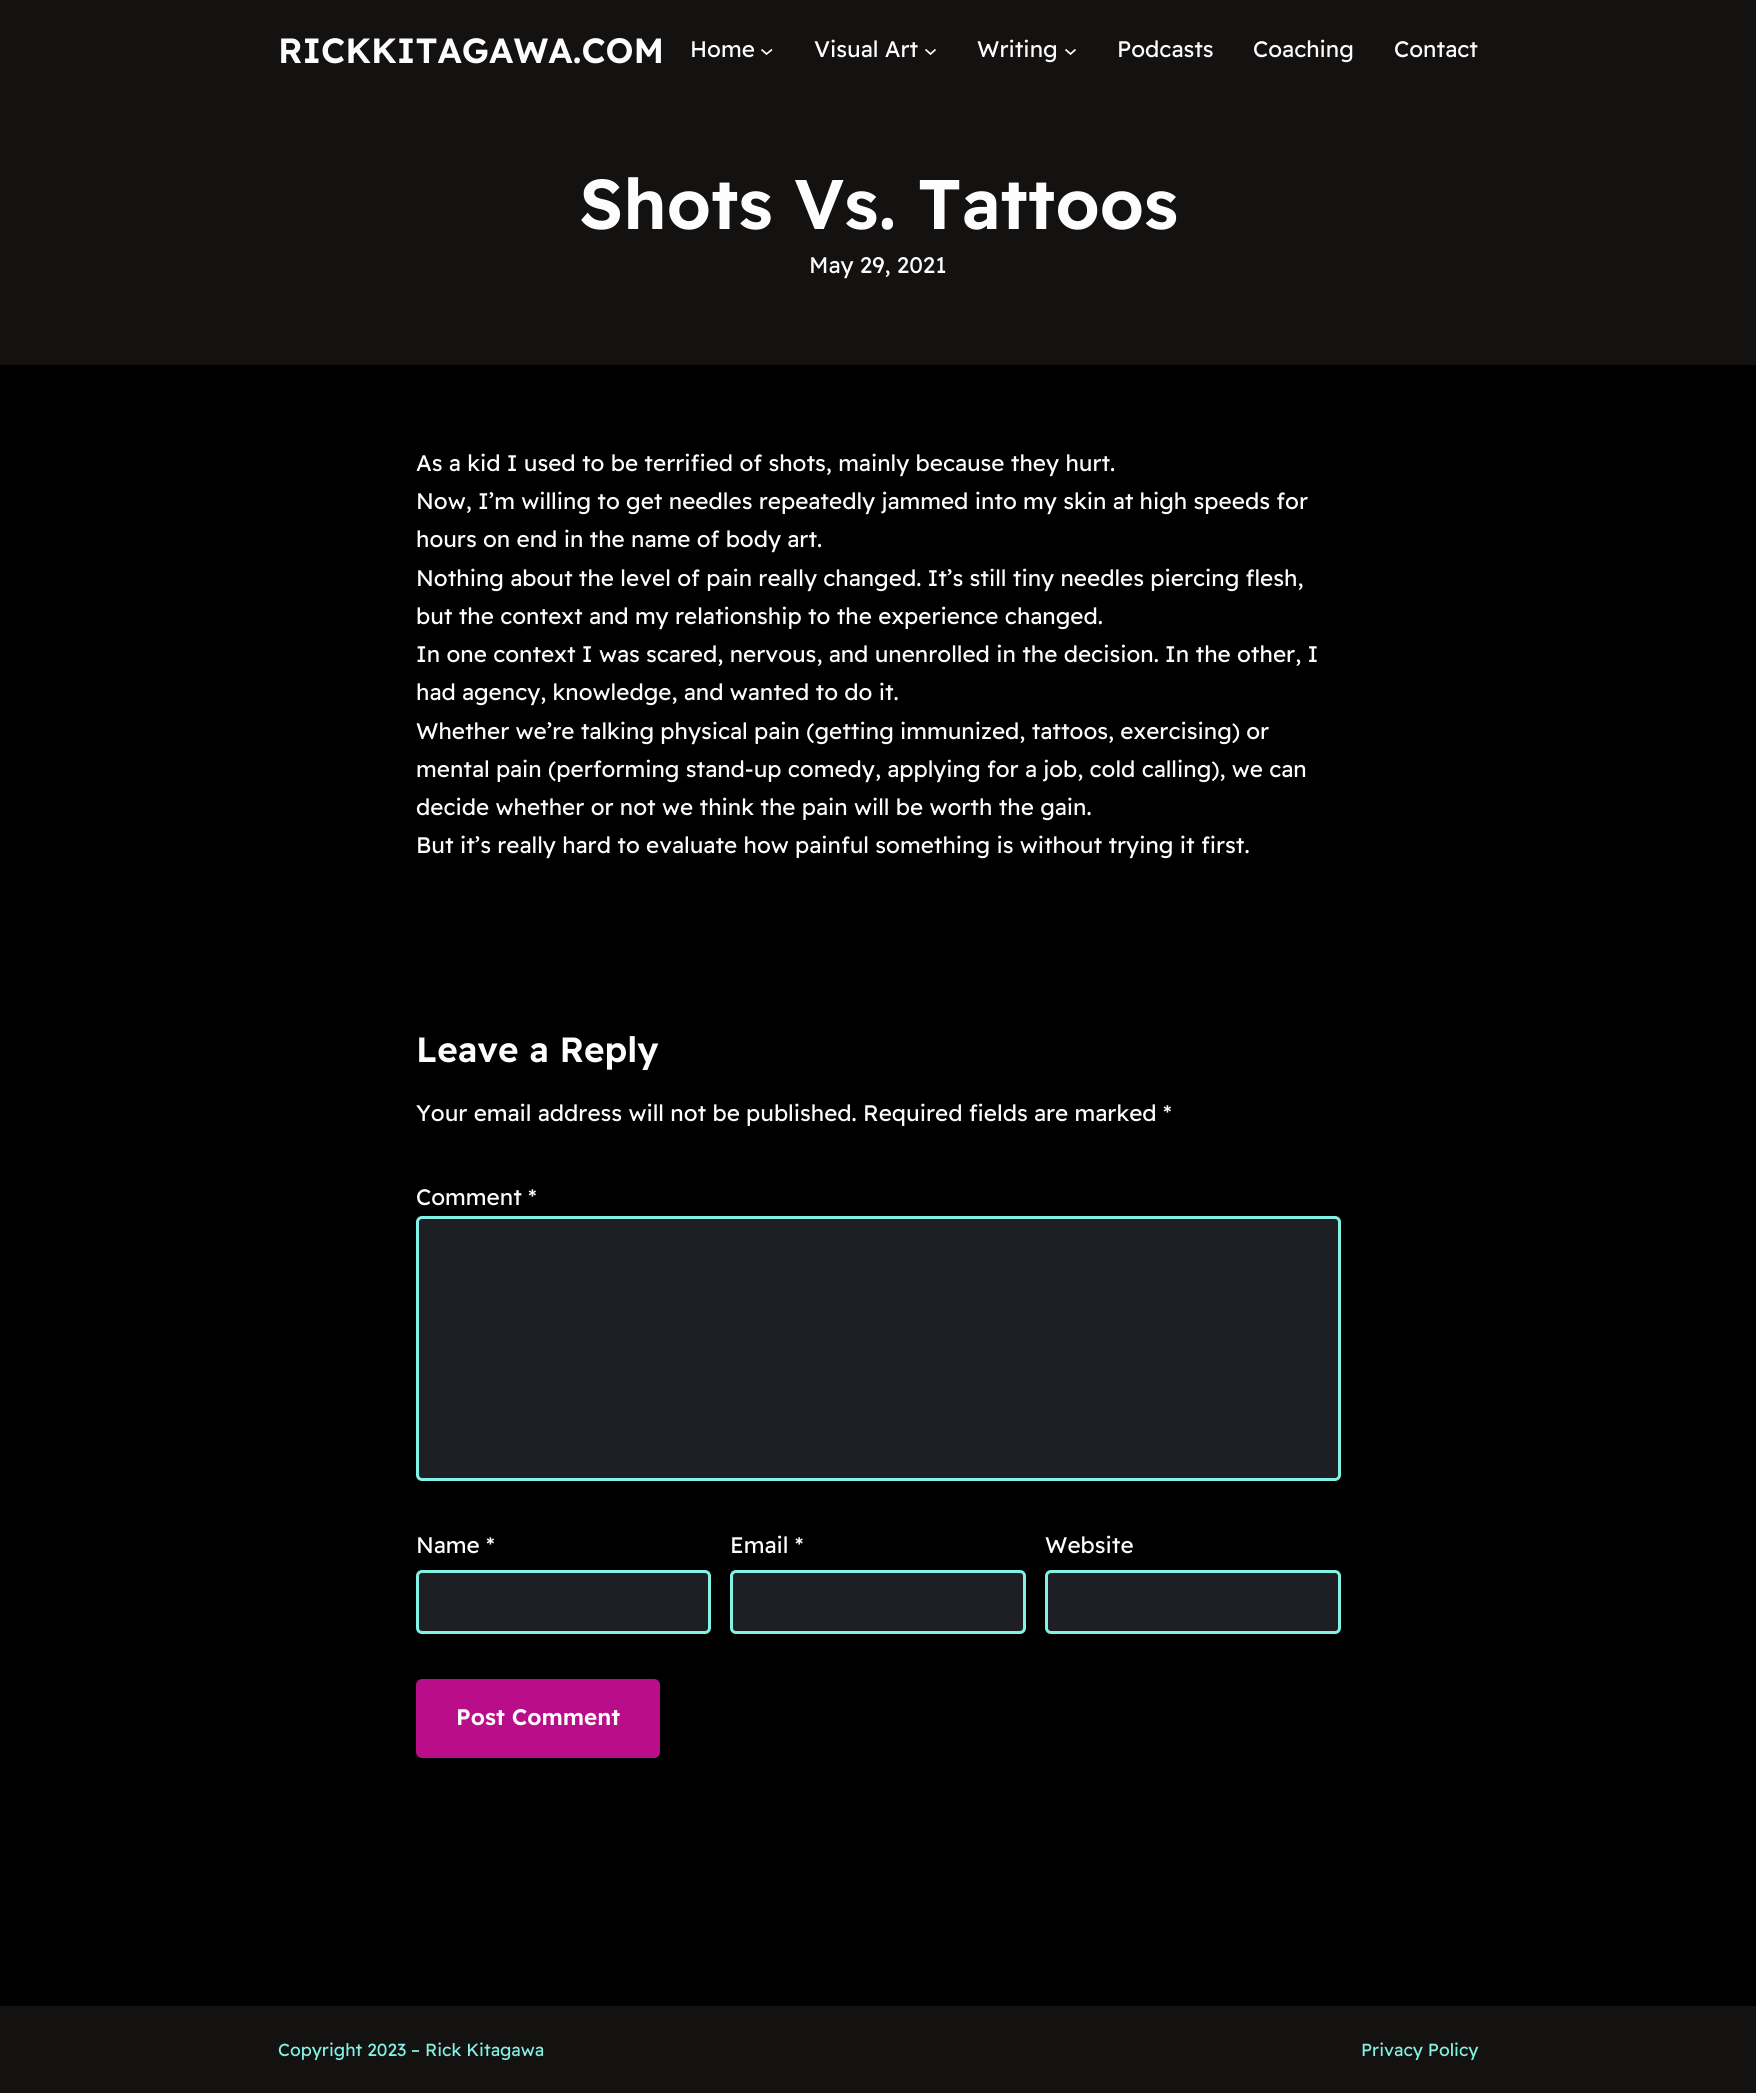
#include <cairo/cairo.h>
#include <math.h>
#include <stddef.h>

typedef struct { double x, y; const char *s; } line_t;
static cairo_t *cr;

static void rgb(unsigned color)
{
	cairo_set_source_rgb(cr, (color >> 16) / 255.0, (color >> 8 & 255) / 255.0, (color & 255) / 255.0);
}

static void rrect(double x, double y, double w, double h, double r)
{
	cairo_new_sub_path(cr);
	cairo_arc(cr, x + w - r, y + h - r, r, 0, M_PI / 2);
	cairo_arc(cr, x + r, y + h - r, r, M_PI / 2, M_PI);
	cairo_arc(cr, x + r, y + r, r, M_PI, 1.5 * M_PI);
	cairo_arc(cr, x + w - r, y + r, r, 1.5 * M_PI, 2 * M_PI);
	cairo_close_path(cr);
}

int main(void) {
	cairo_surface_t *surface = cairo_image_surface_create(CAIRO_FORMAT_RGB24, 1756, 2093);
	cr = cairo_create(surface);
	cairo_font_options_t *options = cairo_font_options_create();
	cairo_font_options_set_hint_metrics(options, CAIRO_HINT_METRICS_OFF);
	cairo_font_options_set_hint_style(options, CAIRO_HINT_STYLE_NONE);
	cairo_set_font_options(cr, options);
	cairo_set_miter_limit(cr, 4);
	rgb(0x000000);
	cairo_paint(cr);
	rgb(0x141111);
	cairo_rectangle(cr, 0, 0, 1756, 365);
	cairo_fill(cr);
	cairo_new_path(cr);
	cairo_move_to(cr, 761.5, 49.5);
	cairo_line_to(cr, 766.5, 54);
	cairo_line_to(cr, 772, 49.5);
	rgb(0xfdfdfd);
	cairo_set_line_width(cr, 1.7);
	cairo_stroke(cr);
	cairo_new_path(cr);
	cairo_move_to(cr, 925.5, 49.5);
	cairo_line_to(cr, 930.5, 54);
	cairo_line_to(cr, 935.5, 49.5);
	cairo_stroke(cr);
	cairo_new_path(cr);
	cairo_move_to(cr, 1065.5, 49.5);
	cairo_line_to(cr, 1070.5, 54);
	cairo_line_to(cr, 1075.5, 49.5);
	cairo_stroke(cr);
	rgb(0x1d1f25);
	rrect(417.5, 1217.5, 922, 262, 4.5);
	cairo_fill_preserve(cr);
	rgb(0x82f2e5);
	cairo_set_line_width(cr, 3);
	cairo_stroke(cr);
	rgb(0x1d1f25);
	rrect(417.5, 1571.5, 292, 61, 4.5);
	cairo_fill_preserve(cr);
	rgb(0x82f2e5);
	cairo_stroke(cr);
	rgb(0x1d1f25);
	rrect(731.5, 1571.5, 293, 61, 4.5);
	cairo_fill_preserve(cr);
	rgb(0x82f2e5);
	cairo_stroke(cr);
	rgb(0x1d1f25);
	rrect(1046.5, 1571.5, 293, 61, 4.5);
	cairo_fill_preserve(cr);
	rgb(0x82f2e5);
	cairo_stroke(cr);
	rgb(0xb90d89);
	rrect(416, 1679, 244, 79, 6);
	cairo_fill(cr);
	rgb(0x141111);
	cairo_rectangle(cr, 0, 2006, 1756, 87);
	cairo_fill(cr);
	cairo_select_font_face(cr, "Readex Pro SemiBold", CAIRO_FONT_SLANT_NORMAL, CAIRO_FONT_WEIGHT_NORMAL);
	cairo_set_font_size(cr, 35);
	rgb(0xfdfdfd);
	cairo_move_to(cr, 278, 63);
	cairo_show_text(cr, "RICKKITAGAWA.COM");
	cairo_select_font_face(cr, "Readex Pro", CAIRO_FONT_SLANT_NORMAL, CAIRO_FONT_WEIGHT_NORMAL);
	cairo_set_font_size(cr, 22.5);
	{
		static const line_t items[] = {
			{690, 57, "Home"},
			{814, 57, "Visual Art"},
			{977, 57, "Writing"},
			{1117, 57, "Podcasts"},
			{1253, 57, "Coaching"},
			{1394, 57, "Contact"},
		};
		for (size_t i = 0; i < sizeof items / sizeof *items; i++) {
			cairo_move_to(cr, items[i].x, items[i].y);
			cairo_show_text(cr, items[i].s);
		}
	}
	cairo_select_font_face(cr, "Readex Pro SemiBold", CAIRO_FONT_SLANT_NORMAL, CAIRO_FONT_WEIGHT_NORMAL);
	cairo_set_font_size(cr, 70);
	cairo_move_to(cr, 579, 229);
	cairo_show_text(cr, "Shots Vs. Tattoos");
	cairo_select_font_face(cr, "Readex Pro", CAIRO_FONT_SLANT_NORMAL, CAIRO_FONT_WEIGHT_NORMAL);
	cairo_set_font_size(cr, 22.5);
	{
		static const line_t items[] = {
			{809, 273, "May 29, 2021"},
			{416, 471, "As a kid I used to be terrified of shots, mainly because they hurt."},
			{416, 509, "Now, I’m willing to get needles repeatedly jammed into my skin at high speeds for"},
			{416, 547, "hours on end in the name of body art."},
			{416, 586, "Nothing about the level of pain really changed. It’s still tiny needles piercing flesh,"},
			{416, 624, "but the context and my relationship to the experience changed."},
			{416, 662, "In one context I was scared, nervous, and unenrolled in the decision. In the other, I"},
			{416, 700, "had agency, knowledge, and wanted to do it."},
			{416, 739, "Whether we’re talking physical pain (getting immunized, tattoos, exercising) or"},
			{416, 777, "mental pain (performing stand-up comedy, applying for a job, cold calling), we can"},
			{416, 815, "decide whether or not we think the pain will be worth the gain."},
			{416, 853, "But it’s really hard to evaluate how painful something is without trying it first."},
		};
		for (size_t i = 0; i < sizeof items / sizeof *items; i++) {
			cairo_move_to(cr, items[i].x, items[i].y);
			cairo_show_text(cr, items[i].s);
		}
	}
	cairo_select_font_face(cr, "Readex Pro SemiBold", CAIRO_FONT_SLANT_NORMAL, CAIRO_FONT_WEIGHT_NORMAL);
	cairo_set_font_size(cr, 35);
	cairo_move_to(cr, 416, 1062);
	cairo_show_text(cr, "Leave a Reply");
	cairo_select_font_face(cr, "Readex Pro", CAIRO_FONT_SLANT_NORMAL, CAIRO_FONT_WEIGHT_NORMAL);
	cairo_set_font_size(cr, 22.5);
	{
		static const line_t items[] = {
			{416, 1121, "Your email address will not be published. Required fields are marked *"},
			{416, 1205, "Comment *"},
			{416, 1553, "Name *"},
			{730, 1553, "Email *"},
			{1045, 1553, "Website"},
		};
		for (size_t i = 0; i < sizeof items / sizeof *items; i++) {
			cairo_move_to(cr, items[i].x, items[i].y);
			cairo_show_text(cr, items[i].s);
		}
	}
	cairo_select_font_face(cr, "Readex Pro SemiBold", CAIRO_FONT_SLANT_NORMAL, CAIRO_FONT_WEIGHT_NORMAL);
	cairo_move_to(cr, 456, 1725);
	cairo_show_text(cr, "Post Comment");
	cairo_select_font_face(cr, "Readex Pro", CAIRO_FONT_SLANT_NORMAL, CAIRO_FONT_WEIGHT_NORMAL);
	cairo_set_font_size(cr, 17.5);
	rgb(0x82f2e5);
	cairo_move_to(cr, 278, 2056);
	cairo_show_text(cr, "Copyright 2023 – Rick Kitagawa");
	cairo_move_to(cr, 1361, 2056);
	cairo_show_text(cr, "Privacy Policy");
	cairo_surface_write_to_png(surface, "page.png");
	cairo_font_options_destroy(options);
	cairo_destroy(cr);
	cairo_surface_destroy(surface);
	return 0;
}
